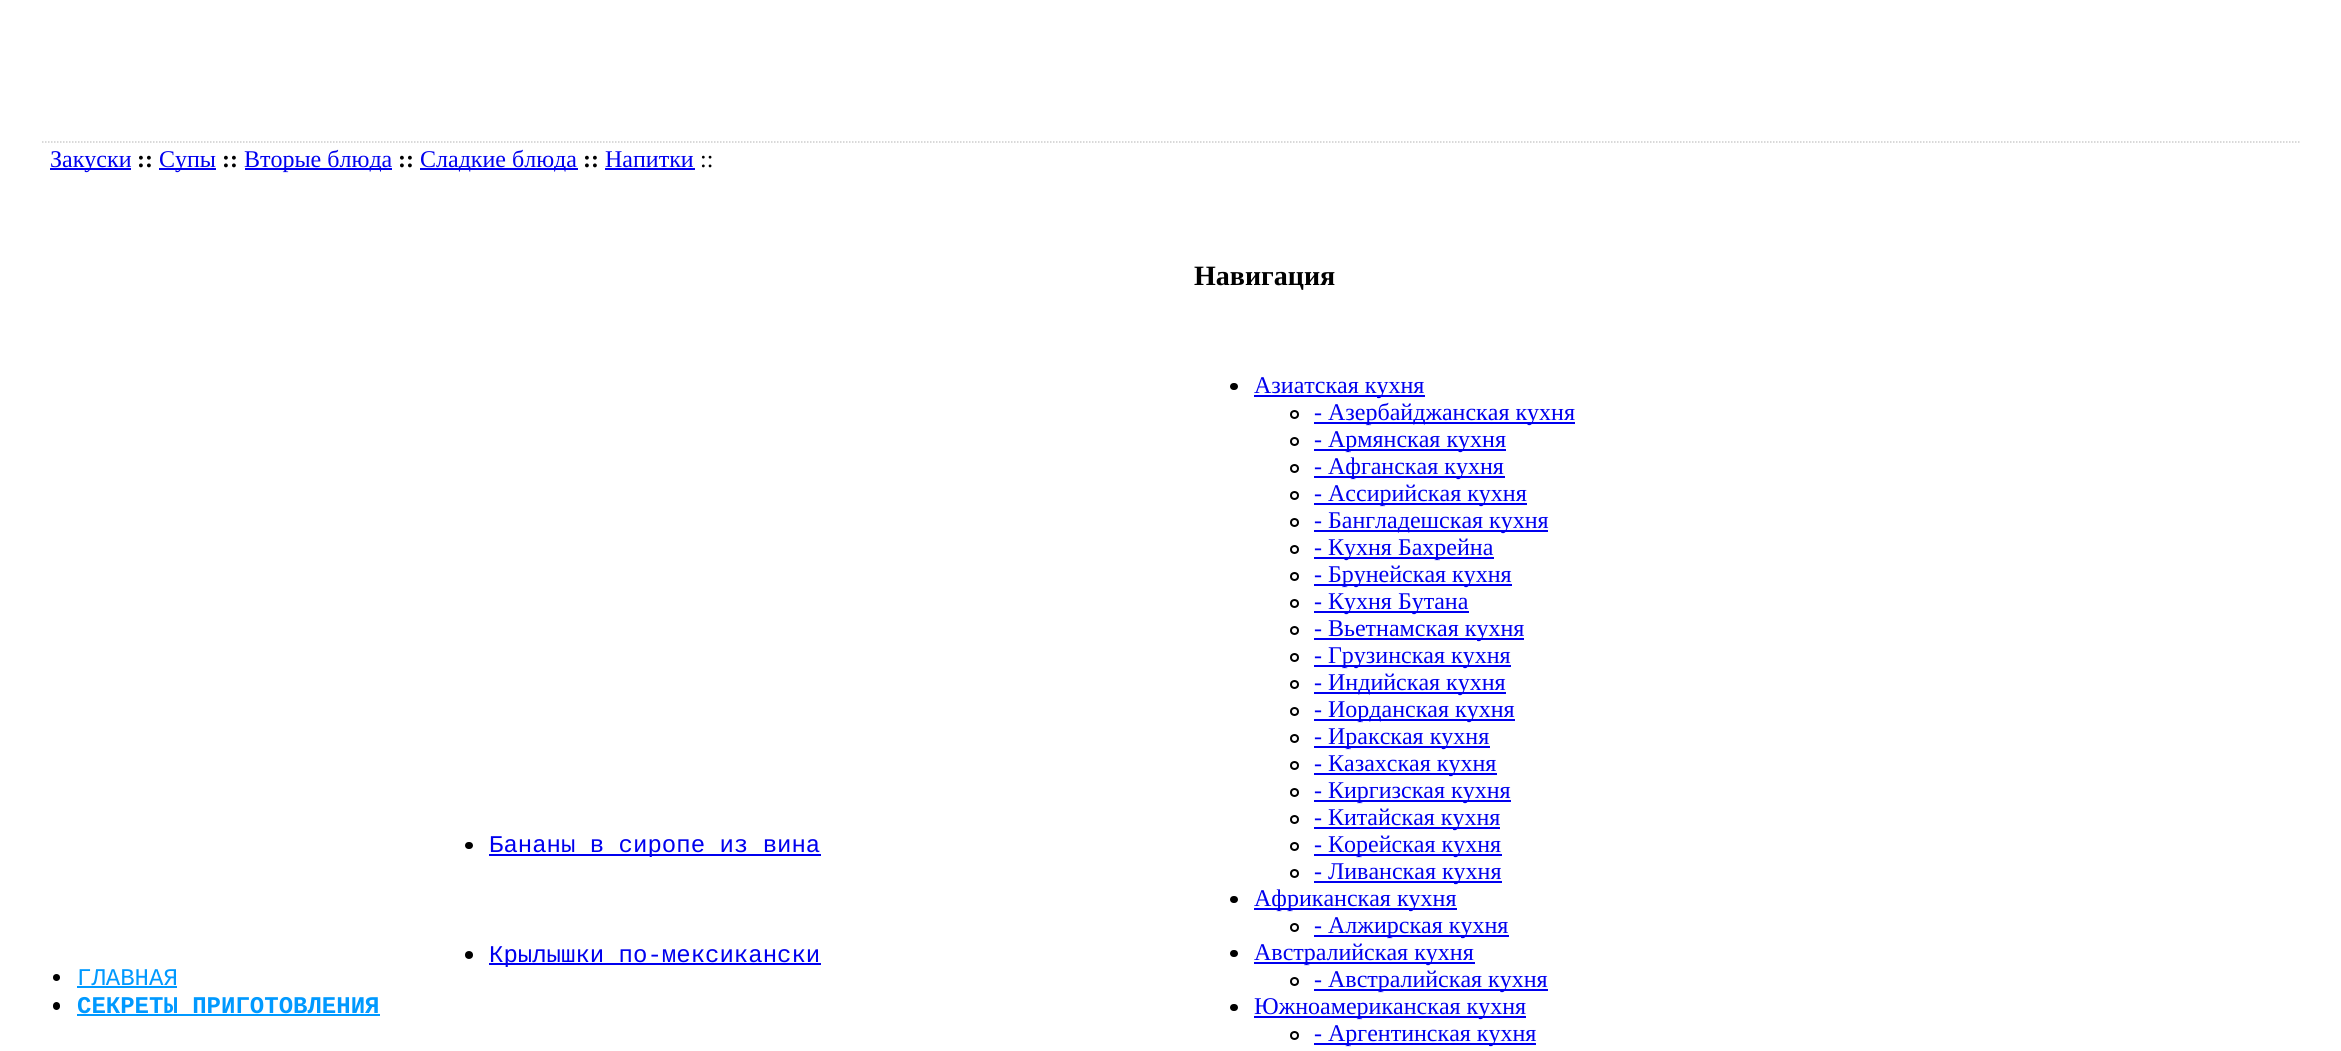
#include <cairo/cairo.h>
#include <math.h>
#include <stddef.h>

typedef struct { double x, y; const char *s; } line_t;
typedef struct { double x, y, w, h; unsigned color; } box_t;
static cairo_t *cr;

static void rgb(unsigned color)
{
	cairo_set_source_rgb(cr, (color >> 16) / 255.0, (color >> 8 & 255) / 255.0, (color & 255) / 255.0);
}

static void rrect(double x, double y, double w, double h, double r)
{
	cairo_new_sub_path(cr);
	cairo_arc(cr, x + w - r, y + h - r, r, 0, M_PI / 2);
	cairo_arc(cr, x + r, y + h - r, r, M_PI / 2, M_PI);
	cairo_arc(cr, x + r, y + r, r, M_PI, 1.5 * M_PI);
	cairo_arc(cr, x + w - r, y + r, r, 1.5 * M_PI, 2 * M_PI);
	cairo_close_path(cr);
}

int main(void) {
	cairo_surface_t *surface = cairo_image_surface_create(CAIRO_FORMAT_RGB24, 2341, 1051);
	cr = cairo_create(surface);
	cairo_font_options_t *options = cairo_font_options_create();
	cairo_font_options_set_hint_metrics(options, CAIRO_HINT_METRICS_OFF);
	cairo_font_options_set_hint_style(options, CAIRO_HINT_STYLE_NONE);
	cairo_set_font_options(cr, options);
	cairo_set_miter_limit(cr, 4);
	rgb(0xffffff);
	cairo_paint(cr);
	cairo_new_path(cr);
	cairo_move_to(cr, 42, 142);
	cairo_line_to(cr, 2299.5, 142);
	rgb(0xcccccc);
	cairo_set_line_width(cr, 1.5);
	cairo_set_dash(cr, (double[]){1.5, 1.5}, 2, 0);
	cairo_stroke(cr);
	{
		static const box_t items[] = {
			{50, 168, 81, 2, 0x0000ee},
			{159, 168, 57, 2, 0x0000ee},
			{245, 168, 147, 2, 0x0000ee},
			{420, 168, 158, 2, 0x0000ee},
			{605, 168, 90, 2, 0x0000ee},
		};
		for (size_t i = 0; i < sizeof items / sizeof *items; i++) {
			rgb(items[i].color);
			cairo_rectangle(cr, items[i].x, items[i].y, items[i].w, items[i].h);
			cairo_fill(cr);
		}
	}
	rgb(0x000000);
	rrect(465, 842, 8, 7, 3.5);
	cairo_fill(cr);
	rgb(0x0000ee);
	cairo_rectangle(cr, 489, 854, 332, 2);
	cairo_fill(cr);
	rgb(0x000000);
	cairo_arc(cr, 469, 955, 4, 0, 2 * M_PI);
	cairo_fill(cr);
	rgb(0x0000ee);
	cairo_rectangle(cr, 489, 963, 332, 2);
	cairo_fill(cr);
	rgb(0x000000);
	rrect(1230, 383, 8, 7, 3.5);
	cairo_fill(cr);
	rgb(0x0000ee);
	cairo_rectangle(cr, 1254, 395, 171, 2);
	cairo_fill(cr);
	cairo_arc(cr, 1294.5, 414.5, 3.5, 0, 2 * M_PI);
	rgb(0x000000);
	cairo_set_line_width(cr, 2);
	cairo_set_dash(cr, NULL, 0, 0);
	cairo_stroke(cr);
	rgb(0x0000ee);
	cairo_rectangle(cr, 1314, 422, 261, 2);
	cairo_fill(cr);
	cairo_arc(cr, 1294.5, 441.5, 3.5, 0, 2 * M_PI);
	rgb(0x000000);
	cairo_stroke(cr);
	rgb(0x0000ee);
	cairo_rectangle(cr, 1314, 449, 192, 2);
	cairo_fill(cr);
	cairo_arc(cr, 1294.5, 468.5, 3.5, 0, 2 * M_PI);
	rgb(0x000000);
	cairo_stroke(cr);
	rgb(0x0000ee);
	cairo_rectangle(cr, 1314, 476, 191, 2);
	cairo_fill(cr);
	cairo_arc(cr, 1294.5, 495.5, 3.5, 0, 2 * M_PI);
	rgb(0x000000);
	cairo_stroke(cr);
	rgb(0x0000ee);
	cairo_rectangle(cr, 1314, 503, 213, 2);
	cairo_fill(cr);
	cairo_arc(cr, 1294.5, 522.5, 3.5, 0, 2 * M_PI);
	rgb(0x000000);
	cairo_stroke(cr);
	rgb(0x0000ee);
	cairo_rectangle(cr, 1314, 530, 234, 2);
	cairo_fill(cr);
	cairo_arc(cr, 1294.5, 549.5, 3.5, 0, 2 * M_PI);
	rgb(0x000000);
	cairo_stroke(cr);
	rgb(0x0000ee);
	cairo_rectangle(cr, 1314, 557, 180, 2);
	cairo_fill(cr);
	cairo_arc(cr, 1294.5, 576.5, 3.5, 0, 2 * M_PI);
	rgb(0x000000);
	cairo_stroke(cr);
	rgb(0x0000ee);
	cairo_rectangle(cr, 1314, 584, 198, 2);
	cairo_fill(cr);
	cairo_arc(cr, 1294.5, 603.5, 3.5, 0, 2 * M_PI);
	rgb(0x000000);
	cairo_stroke(cr);
	rgb(0x0000ee);
	cairo_rectangle(cr, 1314, 611, 155, 2);
	cairo_fill(cr);
	cairo_arc(cr, 1294.5, 630.5, 3.5, 0, 2 * M_PI);
	rgb(0x000000);
	cairo_stroke(cr);
	rgb(0x0000ee);
	cairo_rectangle(cr, 1314, 638, 210, 2);
	cairo_fill(cr);
	cairo_arc(cr, 1294.5, 657.5, 3.5, 0, 2 * M_PI);
	rgb(0x000000);
	cairo_stroke(cr);
	rgb(0x0000ee);
	cairo_rectangle(cr, 1314, 665, 197, 2);
	cairo_fill(cr);
	cairo_arc(cr, 1294.5, 684.5, 3.5, 0, 2 * M_PI);
	rgb(0x000000);
	cairo_stroke(cr);
	rgb(0x0000ee);
	cairo_rectangle(cr, 1314, 692, 192, 2);
	cairo_fill(cr);
	cairo_arc(cr, 1294.5, 711.5, 3.5, 0, 2 * M_PI);
	rgb(0x000000);
	cairo_stroke(cr);
	rgb(0x0000ee);
	cairo_rectangle(cr, 1314, 719, 201, 2);
	cairo_fill(cr);
	cairo_arc(cr, 1294.5, 738.5, 3.5, 0, 2 * M_PI);
	rgb(0x000000);
	cairo_stroke(cr);
	rgb(0x0000ee);
	cairo_rectangle(cr, 1314, 746, 176, 2);
	cairo_fill(cr);
	cairo_arc(cr, 1294.5, 765.5, 3.5, 0, 2 * M_PI);
	rgb(0x000000);
	cairo_stroke(cr);
	rgb(0x0000ee);
	cairo_rectangle(cr, 1314, 773, 183, 2);
	cairo_fill(cr);
	cairo_arc(cr, 1294.5, 792.5, 3.5, 0, 2 * M_PI);
	rgb(0x000000);
	cairo_stroke(cr);
	rgb(0x0000ee);
	cairo_rectangle(cr, 1314, 800, 197, 2);
	cairo_fill(cr);
	cairo_arc(cr, 1294.5, 819.5, 3.5, 0, 2 * M_PI);
	rgb(0x000000);
	cairo_stroke(cr);
	rgb(0x0000ee);
	cairo_rectangle(cr, 1314, 827, 186, 2);
	cairo_fill(cr);
	cairo_arc(cr, 1294.5, 846.5, 3.5, 0, 2 * M_PI);
	rgb(0x000000);
	cairo_stroke(cr);
	rgb(0x0000ee);
	cairo_rectangle(cr, 1314, 854, 188, 2);
	cairo_fill(cr);
	cairo_arc(cr, 1294.5, 873.5, 3.5, 0, 2 * M_PI);
	rgb(0x000000);
	cairo_stroke(cr);
	rgb(0x0000ee);
	cairo_rectangle(cr, 1314, 881, 188, 2);
	cairo_fill(cr);
	rgb(0x000000);
	rrect(1230, 896, 8, 7, 3.5);
	cairo_fill(cr);
	rgb(0x0000ee);
	cairo_rectangle(cr, 1254, 908, 203, 2);
	cairo_fill(cr);
	cairo_arc(cr, 1294.5, 927.5, 3.5, 0, 2 * M_PI);
	rgb(0x000000);
	cairo_stroke(cr);
	rgb(0x0000ee);
	cairo_rectangle(cr, 1314, 935, 195, 2);
	cairo_fill(cr);
	rgb(0x000000);
	rrect(1230, 950, 8, 7, 3.5);
	cairo_fill(cr);
	rgb(0x0000ee);
	cairo_rectangle(cr, 1254, 962, 221, 2);
	cairo_fill(cr);
	cairo_arc(cr, 1294.5, 981.5, 3.5, 0, 2 * M_PI);
	rgb(0x000000);
	cairo_stroke(cr);
	rgb(0x0000ee);
	cairo_rectangle(cr, 1314, 989, 234, 2);
	cairo_fill(cr);
	rgb(0x000000);
	rrect(1230, 1004, 8, 7, 3.5);
	cairo_fill(cr);
	rgb(0x0000ee);
	cairo_rectangle(cr, 1254, 1016, 272, 2);
	cairo_fill(cr);
	cairo_arc(cr, 1294.5, 1035.5, 3.5, 0, 2 * M_PI);
	rgb(0x000000);
	cairo_stroke(cr);
	rgb(0x0000ee);
	cairo_rectangle(cr, 1314, 1043, 222, 2);
	cairo_fill(cr);
	rgb(0x000000);
	cairo_arc(cr, 56.5, 977.5, 3.5, 0, 2 * M_PI);
	cairo_fill(cr);
	rgb(0x0099ff);
	cairo_rectangle(cr, 77, 986, 100, 2);
	cairo_fill(cr);
	rgb(0x000000);
	rrect(53, 1002, 7, 8, 3.5);
	cairo_fill(cr);
	rgb(0x0099ff);
	cairo_rectangle(cr, 77, 1014, 303, 2);
	cairo_fill(cr);
	cairo_select_font_face(cr, "Liberation Serif", CAIRO_FONT_SLANT_NORMAL, CAIRO_FONT_WEIGHT_NORMAL);
	cairo_set_font_size(cr, 24);
	rgb(0x0000ee);
	cairo_move_to(cr, 50, 167);
	cairo_show_text(cr, "Закуски");
	cairo_select_font_face(cr, "Liberation Serif", CAIRO_FONT_SLANT_NORMAL, CAIRO_FONT_WEIGHT_BOLD);
	rgb(0x000000);
	cairo_move_to(cr, 137, 167);
	cairo_show_text(cr, "::");
	cairo_select_font_face(cr, "Liberation Serif", CAIRO_FONT_SLANT_NORMAL, CAIRO_FONT_WEIGHT_NORMAL);
	rgb(0x0000ee);
	cairo_move_to(cr, 159, 167);
	cairo_show_text(cr, "Супы");
	cairo_select_font_face(cr, "Liberation Serif", CAIRO_FONT_SLANT_NORMAL, CAIRO_FONT_WEIGHT_BOLD);
	rgb(0x000000);
	cairo_move_to(cr, 222, 167);
	cairo_show_text(cr, "::");
	cairo_select_font_face(cr, "Liberation Serif", CAIRO_FONT_SLANT_NORMAL, CAIRO_FONT_WEIGHT_NORMAL);
	rgb(0x0000ee);
	cairo_move_to(cr, 244, 167);
	cairo_show_text(cr, "Вторые блюда");
	cairo_select_font_face(cr, "Liberation Serif", CAIRO_FONT_SLANT_NORMAL, CAIRO_FONT_WEIGHT_BOLD);
	rgb(0x000000);
	cairo_move_to(cr, 398, 167);
	cairo_show_text(cr, "::");
	cairo_select_font_face(cr, "Liberation Serif", CAIRO_FONT_SLANT_NORMAL, CAIRO_FONT_WEIGHT_NORMAL);
	rgb(0x0000ee);
	cairo_move_to(cr, 420, 167);
	cairo_show_text(cr, "Сладкие блюда");
	cairo_select_font_face(cr, "Liberation Serif", CAIRO_FONT_SLANT_NORMAL, CAIRO_FONT_WEIGHT_BOLD);
	rgb(0x000000);
	cairo_move_to(cr, 583, 167);
	cairo_show_text(cr, "::");
	cairo_select_font_face(cr, "Liberation Serif", CAIRO_FONT_SLANT_NORMAL, CAIRO_FONT_WEIGHT_NORMAL);
	rgb(0x0000ee);
	cairo_move_to(cr, 605, 167);
	cairo_show_text(cr, "Напитки");
	rgb(0x000000);
	cairo_move_to(cr, 700, 167);
	cairo_show_text(cr, "::");
	cairo_select_font_face(cr, "Liberation Mono", CAIRO_FONT_SLANT_NORMAL, CAIRO_FONT_WEIGHT_NORMAL);
	rgb(0x0000ee);
	cairo_move_to(cr, 489, 852);
	cairo_show_text(cr, "Бананы в сиропе из вина");
	cairo_move_to(cr, 489, 962);
	cairo_show_text(cr, "Крылышки по-мексикански");
	cairo_select_font_face(cr, "Liberation Serif", CAIRO_FONT_SLANT_NORMAL, CAIRO_FONT_WEIGHT_BOLD);
	cairo_set_font_size(cr, 28);
	rgb(0x000000);
	cairo_move_to(cr, 1194, 285);
	cairo_show_text(cr, "Навигация");
	cairo_select_font_face(cr, "Liberation Serif", CAIRO_FONT_SLANT_NORMAL, CAIRO_FONT_WEIGHT_NORMAL);
	cairo_set_font_size(cr, 24);
	rgb(0x0000ee);
	{
		static const line_t items[] = {
			{1254, 393, "Азиатская кухня"},
			{1314, 420, "- Азербайджанская кухня"},
			{1314, 447, "- Армянская кухня"},
			{1314, 474, "- Афганская кухня"},
			{1314, 501, "- Ассирийская кухня"},
			{1314, 528, "- Бангладешская кухня"},
			{1314, 555, "- Кухня Бахрейна"},
			{1314, 582, "- Брунейская кухня"},
			{1314, 609, "- Кухня Бутана"},
			{1314, 636, "- Вьетнамская кухня"},
			{1314, 663, "- Грузинская кухня"},
			{1314, 690, "- Индийская кухня"},
			{1314, 717, "- Иорданская кухня"},
			{1314, 744, "- Иракская кухня"},
			{1314, 771, "- Казахская кухня"},
			{1314, 798, "- Киргизская кухня"},
			{1314, 825, "- Китайская кухня"},
			{1314, 852, "- Корейская кухня"},
			{1314, 879, "- Ливанская кухня"},
			{1254, 906, "Африканская кухня"},
			{1314, 933, "- Алжирская кухня"},
			{1254, 960, "Австралийская кухня"},
			{1314, 987, "- Австралийская кухня"},
			{1254, 1014, "Южноамериканская кухня"},
			{1314, 1041, "- Аргентинская кухня"},
		};
		for (size_t i = 0; i < sizeof items / sizeof *items; i++) {
			cairo_move_to(cr, items[i].x, items[i].y);
			cairo_show_text(cr, items[i].s);
		}
	}
	cairo_select_font_face(cr, "Liberation Mono", CAIRO_FONT_SLANT_NORMAL, CAIRO_FONT_WEIGHT_NORMAL);
	rgb(0x0099ff);
	cairo_move_to(cr, 77, 985);
	cairo_show_text(cr, "ГЛАВНАЯ");
	cairo_select_font_face(cr, "Liberation Mono", CAIRO_FONT_SLANT_NORMAL, CAIRO_FONT_WEIGHT_BOLD);
	cairo_move_to(cr, 77, 1013);
	cairo_show_text(cr, "СЕКРЕТЫ ПРИГОТОВЛЕНИЯ");
	cairo_surface_write_to_png(surface, "page.png");
	cairo_font_options_destroy(options);
	cairo_destroy(cr);
	cairo_surface_destroy(surface);
	return 0;
}
